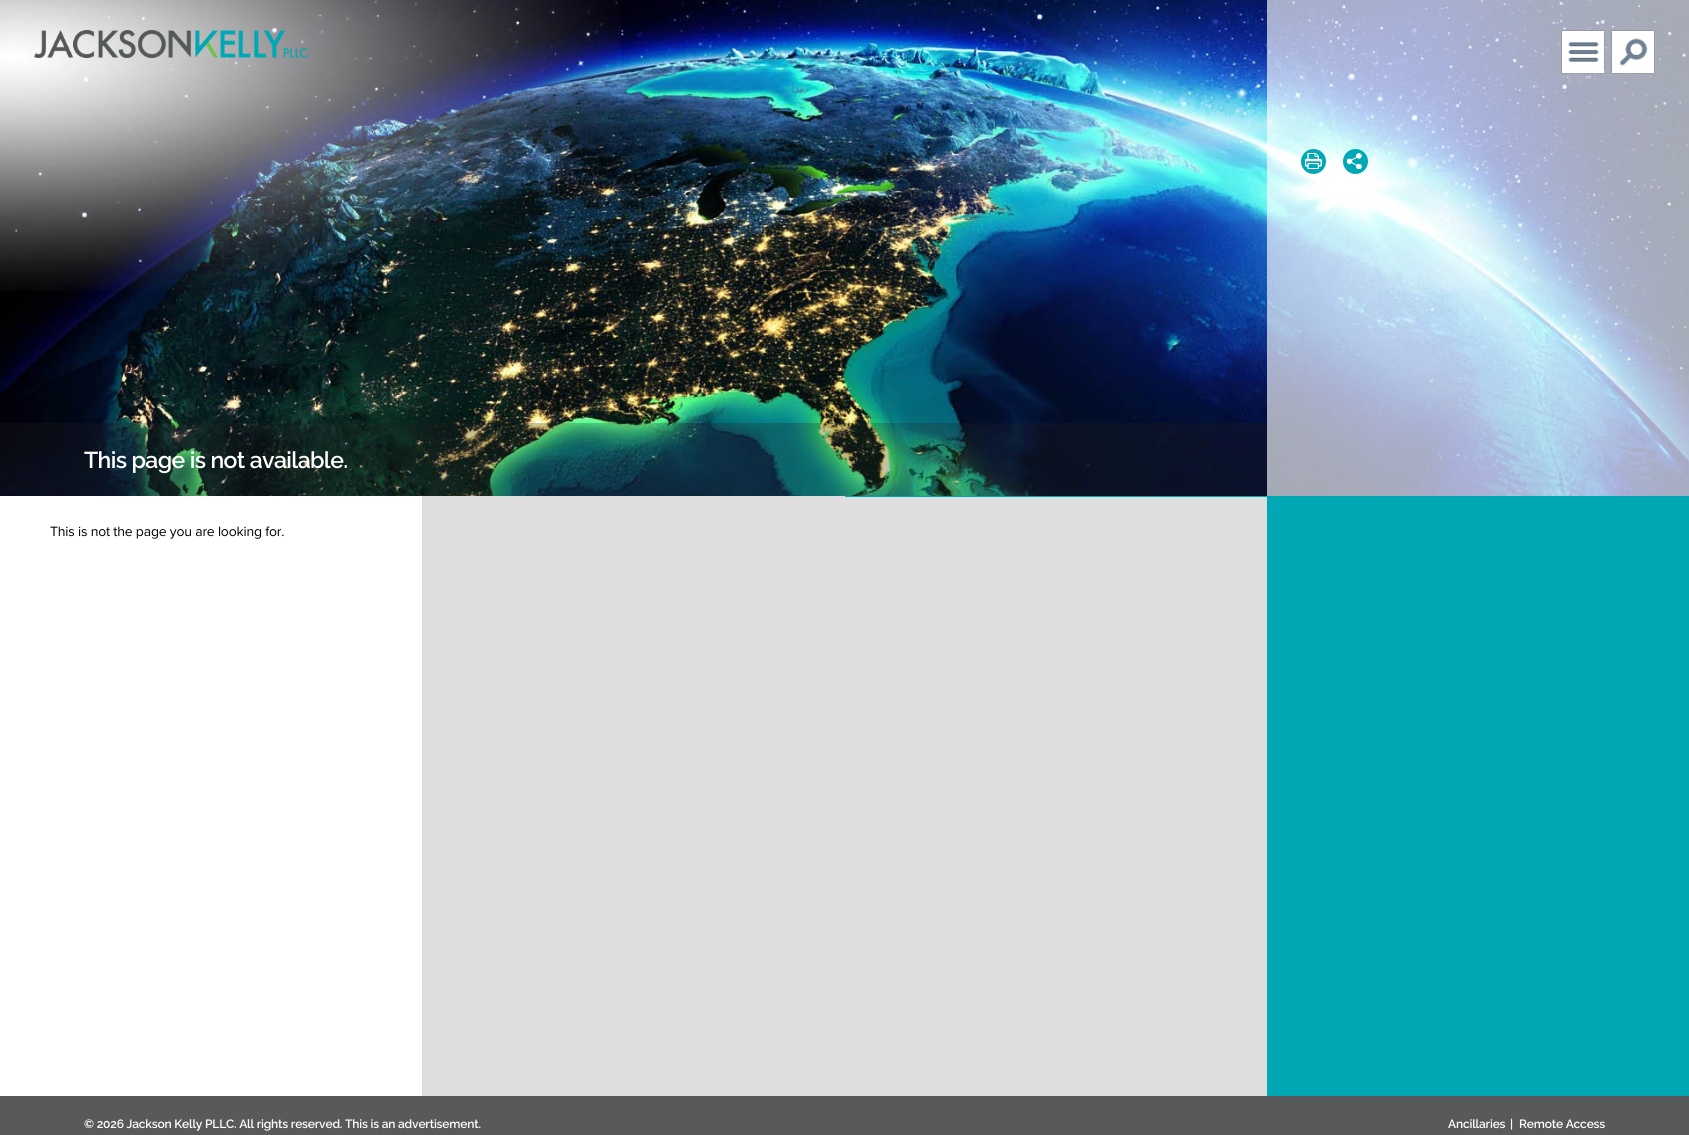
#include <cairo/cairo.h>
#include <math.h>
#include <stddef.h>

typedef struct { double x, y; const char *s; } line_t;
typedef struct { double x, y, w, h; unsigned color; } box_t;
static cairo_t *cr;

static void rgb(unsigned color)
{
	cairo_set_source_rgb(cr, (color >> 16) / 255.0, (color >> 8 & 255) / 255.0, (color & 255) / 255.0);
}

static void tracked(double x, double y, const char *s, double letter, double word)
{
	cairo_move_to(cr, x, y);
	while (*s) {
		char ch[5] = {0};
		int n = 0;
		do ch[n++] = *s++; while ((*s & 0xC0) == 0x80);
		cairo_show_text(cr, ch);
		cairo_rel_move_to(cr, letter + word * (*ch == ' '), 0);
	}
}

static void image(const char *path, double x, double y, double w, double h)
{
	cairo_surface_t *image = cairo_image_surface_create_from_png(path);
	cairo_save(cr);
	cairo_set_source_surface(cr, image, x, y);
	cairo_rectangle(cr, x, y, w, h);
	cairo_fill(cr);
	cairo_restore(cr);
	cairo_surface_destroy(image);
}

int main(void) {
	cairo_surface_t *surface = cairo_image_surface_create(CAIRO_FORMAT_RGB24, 1689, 1135);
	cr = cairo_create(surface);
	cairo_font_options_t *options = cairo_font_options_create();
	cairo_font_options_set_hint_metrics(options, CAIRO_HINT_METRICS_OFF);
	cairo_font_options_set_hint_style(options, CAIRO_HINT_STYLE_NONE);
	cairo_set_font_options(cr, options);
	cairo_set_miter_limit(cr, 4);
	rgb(0xffffff);
	cairo_paint(cr);
	image("img/3.png", 0, 0, 1689, 496);
	cairo_set_source_rgba(cr, 1, 1, 1, 0.65);
	cairo_rectangle(cr, 1267, 0, 422, 496);
	cairo_fill(cr);
	image("img/1.png", 1561, 30, 44, 44);
	image("img/2.png", 1611, 30, 44, 44);
	image("img/4.png", 0, 0, 621, 291);
	image("img/5.png", 34, 30, 273, 28);
	cairo_set_source_rgba(cr, 0.141, 0.125, 0.125, 0.25);
	cairo_rectangle(cr, 0, 423, 1267, 73);
	cairo_fill(cr);
	rgb(0x00a8b5);
	cairo_arc(cr, 1313.5, 161.5, 12.5, 0, 2 * M_PI);
	cairo_fill(cr);
	cairo_arc(cr, 1355.5, 161.5, 12.5, 0, 2 * M_PI);
	cairo_fill(cr);
	image("img/6.png", 1304, 152, 18, 17);
	image("img/7.png", 1346, 153, 16, 16);
	{
		static const box_t items[] = {
			{422, 496, 845, 600, 0xdedede},
			{1267, 496, 422, 600, 0x00a8b5},
			{845, 496, 422, 1, 0x00a8b5},
			{0, 1096, 1689, 39, 0x58595b},
		};
		for (size_t i = 0; i < sizeof items / sizeof *items; i++) {
			rgb(items[i].color);
			cairo_rectangle(cr, items[i].x, items[i].y, items[i].w, items[i].h);
			cairo_fill(cr);
		}
	}
	cairo_select_font_face(cr, "Raleway SemiBold", CAIRO_FONT_SLANT_NORMAL, CAIRO_FONT_WEIGHT_NORMAL);
	cairo_set_font_size(cr, 23);
	rgb(0xffffff);
	tracked(84, 468, "This page is not available.", -0.6, 0);
	cairo_select_font_face(cr, "Proxima Nova", CAIRO_FONT_SLANT_NORMAL, CAIRO_FONT_WEIGHT_NORMAL);
	cairo_set_font_size(cr, 14);
	rgb(0x000000);
	tracked(50, 536, "This is not the page you are looking for.", -0.2, 0);
	cairo_select_font_face(cr, "Raleway SemiBold", CAIRO_FONT_SLANT_NORMAL, CAIRO_FONT_WEIGHT_NORMAL);
	cairo_set_font_size(cr, 12);
	rgb(0xffffff);
	{
		static const line_t items[] = {
			{84, 1128, "© 2026 Jackson Kelly PLLC. All rights reserved. This is an advertisement."},
			{1448, 1128, "Ancillaries"},
			{1510, 1128, "|"},
			{1519, 1128, "Remote Access"},
		};
		for (size_t i = 0; i < sizeof items / sizeof *items; i++) {
			tracked(items[i].x, items[i].y, items[i].s, -0.18, 0);
		}
	}
	cairo_surface_write_to_png(surface, "page.png");
	cairo_font_options_destroy(options);
	cairo_destroy(cr);
	cairo_surface_destroy(surface);
	return 0;
}
